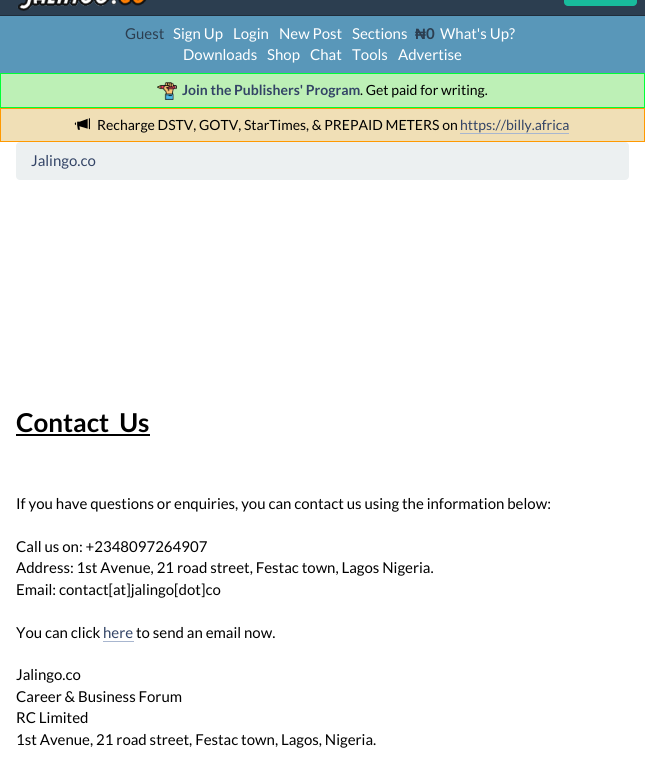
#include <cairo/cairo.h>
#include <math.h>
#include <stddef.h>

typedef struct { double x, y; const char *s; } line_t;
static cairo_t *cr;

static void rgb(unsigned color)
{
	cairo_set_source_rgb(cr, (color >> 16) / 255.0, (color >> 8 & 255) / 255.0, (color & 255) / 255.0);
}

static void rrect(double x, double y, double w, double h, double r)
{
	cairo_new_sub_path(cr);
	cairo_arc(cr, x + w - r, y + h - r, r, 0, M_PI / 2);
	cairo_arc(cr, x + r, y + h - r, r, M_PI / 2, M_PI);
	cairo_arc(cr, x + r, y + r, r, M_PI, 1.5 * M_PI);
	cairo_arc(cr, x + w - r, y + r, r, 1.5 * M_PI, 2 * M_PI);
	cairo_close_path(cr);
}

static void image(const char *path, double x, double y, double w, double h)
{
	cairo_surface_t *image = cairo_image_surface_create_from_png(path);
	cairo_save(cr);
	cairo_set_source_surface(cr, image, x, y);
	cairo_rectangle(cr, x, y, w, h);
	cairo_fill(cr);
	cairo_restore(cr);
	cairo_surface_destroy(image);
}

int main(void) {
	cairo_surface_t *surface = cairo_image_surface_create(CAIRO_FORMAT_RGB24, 645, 760);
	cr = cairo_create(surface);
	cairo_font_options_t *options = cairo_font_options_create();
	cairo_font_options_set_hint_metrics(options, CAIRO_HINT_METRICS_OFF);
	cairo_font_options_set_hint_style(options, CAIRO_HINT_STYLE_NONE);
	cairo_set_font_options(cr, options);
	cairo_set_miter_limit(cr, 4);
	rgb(0xffffff);
	cairo_paint(cr);
	rgb(0x2c3e50);
	cairo_rectangle(cr, 0, 0, 645, 15);
	cairo_fill(cr);
	rgb(0x202d3b);
	cairo_rectangle(cr, 0, 15, 645, 1);
	cairo_fill(cr);
	image("img/1.png", 17, 0, 130, 11);
	rgb(0x18bc9c);
	rrect(564, -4, 73, 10, 4);
	cairo_fill(cr);
	rgb(0x5997b9);
	cairo_rectangle(cr, 0, 16, 645, 57);
	cairo_fill(cr);
	rgb(0xbdf0b6);
	cairo_rectangle(cr, 0.5, 73.5, 644, 34);
	cairo_fill_preserve(cr);
	rgb(0x00ff37);
	cairo_set_line_width(cr, 1);
	cairo_stroke(cr);
	image("img/2.png", 157, 82, 20, 19);
	rgb(0xf0dfb6);
	cairo_rectangle(cr, 0.5, 108.5, 644, 33);
	cairo_fill_preserve(cr);
	rgb(0xff9900);
	cairo_stroke(cr);
	image("img/3.png", 74, 118, 16, 12);
	rgb(0xa8b6cf);
	cairo_rectangle(cr, 460, 133, 109, 1);
	cairo_fill(cr);
	rgb(0xecf0f1);
	rrect(16, 142, 613, 38, 4);
	cairo_fill(cr);
	rgb(0x000000);
	cairo_rectangle(cr, 16, 434, 134, 2);
	cairo_fill(cr);
	rgb(0xa8b6cf);
	cairo_rectangle(cr, 103, 641, 31, 1);
	cairo_fill(cr);
	cairo_select_font_face(cr, "Lato", CAIRO_FONT_SLANT_NORMAL, CAIRO_FONT_WEIGHT_NORMAL);
	cairo_set_font_size(cr, 15);
	rgb(0x2c3e50);
	cairo_move_to(cr, 125, 39);
	cairo_show_text(cr, "Guest");
	rgb(0xffffff);
	{
		static const line_t items[] = {
			{173, 39, "Sign Up"},
			{233, 39, "Login"},
			{279, 39, "New Post"},
			{352, 39, "Sections"},
		};
		for (size_t i = 0; i < sizeof items / sizeof *items; i++) {
			cairo_move_to(cr, items[i].x, items[i].y);
			cairo_show_text(cr, items[i].s);
		}
	}
	cairo_select_font_face(cr, "Liberation Sans", CAIRO_FONT_SLANT_NORMAL, CAIRO_FONT_WEIGHT_BOLD);
	rgb(0x2c3e50);
	cairo_move_to(cr, 415, 39);
	cairo_show_text(cr, "₦");
	cairo_select_font_face(cr, "Lato", CAIRO_FONT_SLANT_NORMAL, CAIRO_FONT_WEIGHT_BOLD);
	cairo_move_to(cr, 426, 39);
	cairo_show_text(cr, "0");
	cairo_select_font_face(cr, "Lato", CAIRO_FONT_SLANT_NORMAL, CAIRO_FONT_WEIGHT_NORMAL);
	rgb(0xffffff);
	{
		static const line_t items[] = {
			{440, 39, "What's Up?"},
			{183, 60, "Downloads"},
			{267, 60, "Shop"},
			{310, 60, "Chat"},
			{352, 60, "Tools"},
			{398, 60, "Advertise"},
		};
		for (size_t i = 0; i < sizeof items / sizeof *items; i++) {
			cairo_move_to(cr, items[i].x, items[i].y);
			cairo_show_text(cr, items[i].s);
		}
	}
	cairo_select_font_face(cr, "Lato", CAIRO_FONT_SLANT_NORMAL, CAIRO_FONT_WEIGHT_BOLD);
	cairo_set_font_size(cr, 14);
	rgb(0x334466);
	cairo_move_to(cr, 182, 95);
	cairo_show_text(cr, "Join the Publishers' Program");
	cairo_select_font_face(cr, "Lato", CAIRO_FONT_SLANT_NORMAL, CAIRO_FONT_WEIGHT_NORMAL);
	rgb(0x000000);
	cairo_move_to(cr, 360, 95);
	cairo_show_text(cr, ". Get paid for writing.");
	cairo_move_to(cr, 97, 130);
	cairo_show_text(cr, "Recharge DSTV, GOTV, StarTimes, & PREPAID METERS on");
	rgb(0x334466);
	cairo_move_to(cr, 460, 130);
	cairo_show_text(cr, "https://billy.africa");
	cairo_set_font_size(cr, 15);
	cairo_move_to(cr, 31, 166);
	cairo_show_text(cr, "Jalingo.co");
	cairo_select_font_face(cr, "Lato", CAIRO_FONT_SLANT_NORMAL, CAIRO_FONT_WEIGHT_BOLD);
	cairo_set_font_size(cr, 26);
	rgb(0x000000);
	cairo_move_to(cr, 16, 432);
	cairo_show_text(cr, "Contact  Us");
	cairo_select_font_face(cr, "Lato", CAIRO_FONT_SLANT_NORMAL, CAIRO_FONT_WEIGHT_NORMAL);
	cairo_set_font_size(cr, 15);
	{
		static const line_t items[] = {
			{16, 509, "If you have questions or enquiries, you can contact us using the information below:"},
			{16, 552, "Call us on: +2348097264907"},
			{16, 573, "Address: 1st Avenue, 21 road street, Festac town, Lagos Nigeria."},
			{16, 595, "Email: contact[at]jalingo[dot]co"},
			{16, 638, "You can click"},
		};
		for (size_t i = 0; i < sizeof items / sizeof *items; i++) {
			cairo_move_to(cr, items[i].x, items[i].y);
			cairo_show_text(cr, items[i].s);
		}
	}
	rgb(0x334466);
	cairo_move_to(cr, 103, 638);
	cairo_show_text(cr, "here");
	rgb(0x000000);
	{
		static const line_t items[] = {
			{136, 638, "to send an email now."},
			{16, 680, "Jalingo.co"},
			{16, 702, "Career & Business Forum"},
			{16, 723, "RC Limited"},
			{16, 745, "1st Avenue, 21 road street, Festac town, Lagos, Nigeria."},
		};
		for (size_t i = 0; i < sizeof items / sizeof *items; i++) {
			cairo_move_to(cr, items[i].x, items[i].y);
			cairo_show_text(cr, items[i].s);
		}
	}
	cairo_surface_write_to_png(surface, "page.png");
	cairo_font_options_destroy(options);
	cairo_destroy(cr);
	cairo_surface_destroy(surface);
	return 0;
}
